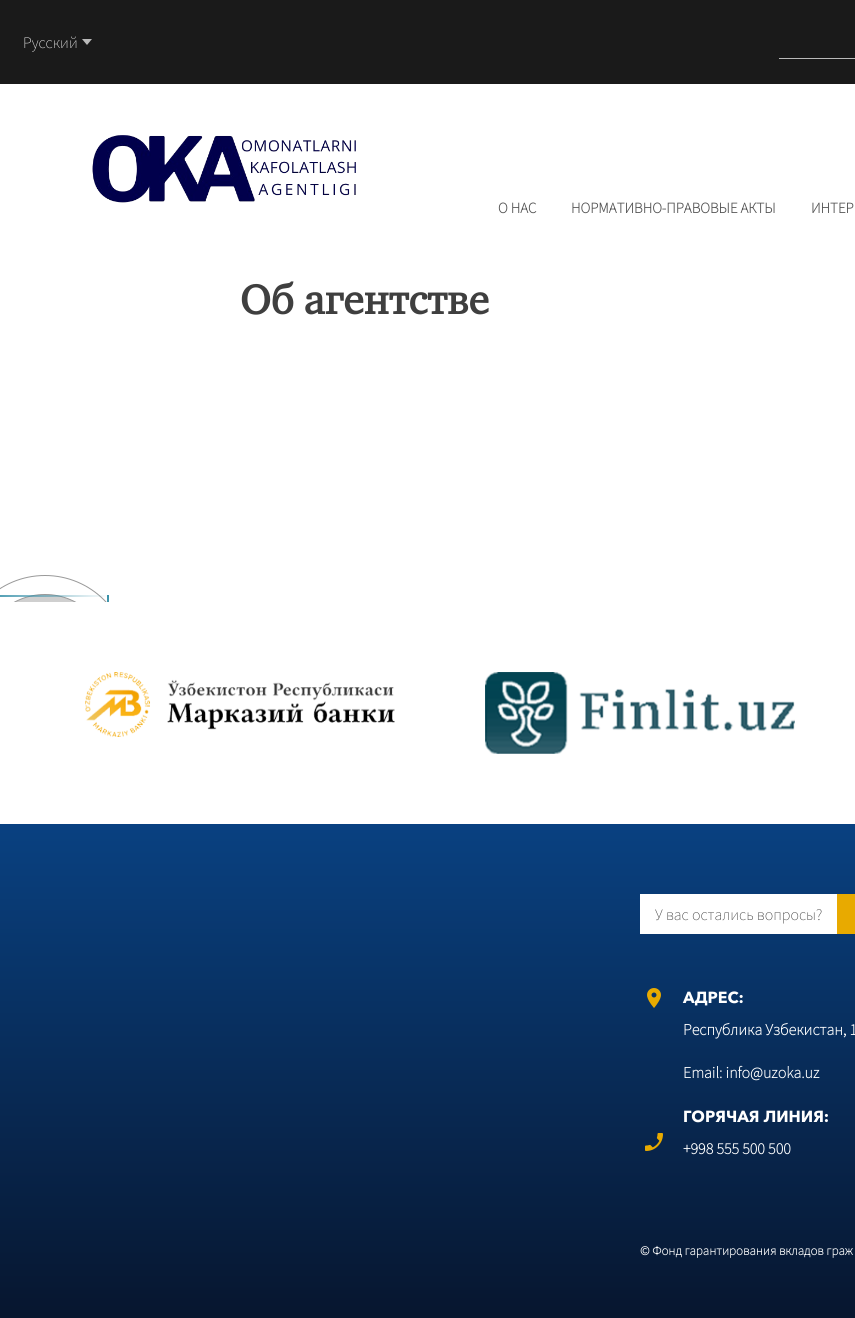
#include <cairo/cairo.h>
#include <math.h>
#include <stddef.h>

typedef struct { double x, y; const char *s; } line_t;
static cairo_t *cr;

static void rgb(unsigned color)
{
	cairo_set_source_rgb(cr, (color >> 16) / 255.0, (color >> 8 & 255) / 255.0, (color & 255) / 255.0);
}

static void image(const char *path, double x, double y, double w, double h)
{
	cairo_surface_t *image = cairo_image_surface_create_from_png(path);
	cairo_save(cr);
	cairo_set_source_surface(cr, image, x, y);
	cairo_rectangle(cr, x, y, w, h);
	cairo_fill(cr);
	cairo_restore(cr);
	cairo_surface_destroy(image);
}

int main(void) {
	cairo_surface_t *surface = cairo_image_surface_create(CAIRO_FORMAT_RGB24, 855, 1318);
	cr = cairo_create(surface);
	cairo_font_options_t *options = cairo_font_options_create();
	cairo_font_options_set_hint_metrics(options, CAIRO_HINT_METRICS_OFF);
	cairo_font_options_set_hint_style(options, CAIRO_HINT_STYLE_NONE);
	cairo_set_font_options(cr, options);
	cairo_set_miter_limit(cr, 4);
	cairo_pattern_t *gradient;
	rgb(0xffffff);
	cairo_paint(cr);
	rgb(0x1a1a1a);
	cairo_rectangle(cr, 0, 0, 855, 84);
	cairo_fill(cr);
	rgb(0xbababa);
	cairo_new_path(cr);
	cairo_move_to(cr, 82, 39);
	cairo_line_to(cr, 92, 39);
	cairo_line_to(cr, 87, 45);
	cairo_close_path(cr);
	cairo_fill(cr);
	cairo_rectangle(cr, 779, 58, 76, 1);
	cairo_fill(cr);
	image("img/1.png", 92, 135, 264, 68);
	rgb(0xcfcfcf);
	cairo_arc(cr, 45, 659, 64.5, 0, 2 * M_PI);
	cairo_fill_preserve(cr);
	rgb(0x999999);
	cairo_set_line_width(cr, 1);
	cairo_stroke(cr);
	cairo_arc(cr, 45, 659, 83.5, 0, 2 * M_PI);
	cairo_stroke(cr);
	gradient = cairo_pattern_create_linear(109, 596, -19, 596);
	cairo_pattern_add_color_stop_rgba(gradient, 0, 0.216, 0.565, 0.659, 0);
	cairo_pattern_add_color_stop_rgba(gradient, 1, 0.216, 0.565, 0.659, 1);
	cairo_set_source(cr, gradient);
	cairo_pattern_destroy(gradient);
	cairo_rectangle(cr, 0, 595, 109, 2);
	cairo_fill(cr);
	gradient = cairo_pattern_create_linear(108, 723, 108, 595);
	cairo_pattern_add_color_stop_rgba(gradient, 0, 0.216, 0.565, 0.659, 0);
	cairo_pattern_add_color_stop_rgba(gradient, 1, 0.216, 0.565, 0.659, 1);
	cairo_set_source(cr, gradient);
	cairo_pattern_destroy(gradient);
	cairo_rectangle(cr, 107, 595, 2, 7);
	cairo_fill(cr);
	rgb(0xffffff);
	cairo_rectangle(cr, 0, 602, 129, 141);
	cairo_fill(cr);
	image("img/2.png", 85, 672, 310, 65);
	image("img/3.png", 485, 672, 310, 82);
	gradient = cairo_pattern_create_linear(640, 824, 640, 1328);
	cairo_pattern_add_color_stop_rgba(gradient, 0, 0.035, 0.255, 0.506, 1);
	cairo_pattern_add_color_stop_rgba(gradient, 1, 0.027, 0.082, 0.176, 1);
	cairo_set_source(cr, gradient);
	cairo_pattern_destroy(gradient);
	cairo_rectangle(cr, 0, 824, 855, 494);
	cairo_fill(cr);
	rgb(0xffffff);
	cairo_rectangle(cr, 640, 894, 197, 40);
	cairo_fill(cr);
	rgb(0xe8aa00);
	cairo_rectangle(cr, 837, 894, 18, 40);
	cairo_fill(cr);
	image("img/4.png", 647, 988, 14, 20);
	image("img/5.png", 645, 1133, 18, 18);
	cairo_select_font_face(cr, "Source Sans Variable", CAIRO_FONT_SLANT_NORMAL, CAIRO_FONT_WEIGHT_NORMAL);
	cairo_set_font_size(cr, 16);
	rgb(0xffffff);
	cairo_move_to(cr, 23, 48);
	cairo_show_text(cr, "Русский");
	cairo_select_font_face(cr, "Source Sans Variable", CAIRO_FONT_SLANT_NORMAL, CAIRO_FONT_WEIGHT_BOLD);
	cairo_set_font_size(cr, 15);
	rgb(0x525252);
	{
		static const line_t items[] = {
			{498, 213, "О НАС"},
			{571, 213, "НОРМАТИВНО-ПРАВОВЫЕ АКТЫ"},
			{811, 213, "ИНТЕР"},
		};
		for (size_t i = 0; i < sizeof items / sizeof *items; i++) {
			cairo_move_to(cr, items[i].x, items[i].y);
			cairo_show_text(cr, items[i].s);
		}
	}
	cairo_select_font_face(cr, "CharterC", CAIRO_FONT_SLANT_NORMAL, CAIRO_FONT_WEIGHT_BOLD);
	cairo_set_font_size(cr, 42);
	rgb(0x3f3f3f);
	cairo_move_to(cr, 240, 314);
	cairo_show_text(cr, "Об агентстве");
	cairo_select_font_face(cr, "Source Sans Variable", CAIRO_FONT_SLANT_NORMAL, CAIRO_FONT_WEIGHT_NORMAL);
	cairo_set_font_size(cr, 16);
	rgb(0x333333);
	cairo_move_to(cr, 655, 920);
	cairo_show_text(cr, "У вас остались вопросы?");
	cairo_select_font_face(cr, "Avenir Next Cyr", CAIRO_FONT_SLANT_NORMAL, CAIRO_FONT_WEIGHT_BOLD);
	rgb(0xffffff);
	cairo_move_to(cr, 683, 1003);
	cairo_show_text(cr, "АДРЕС:");
	cairo_select_font_face(cr, "Source Sans Variable", CAIRO_FONT_SLANT_NORMAL, CAIRO_FONT_WEIGHT_BOLD);
	cairo_move_to(cr, 683, 1035);
	cairo_show_text(cr, "Республика Узбекистан, 1");
	cairo_move_to(cr, 683, 1078);
	cairo_show_text(cr, "Email: info@uzoka.uz");
	cairo_select_font_face(cr, "Avenir Next Cyr", CAIRO_FONT_SLANT_NORMAL, CAIRO_FONT_WEIGHT_BOLD);
	cairo_move_to(cr, 683, 1122);
	cairo_show_text(cr, "ГОРЯЧАЯ ЛИНИЯ:");
	cairo_select_font_face(cr, "Source Sans Variable", CAIRO_FONT_SLANT_NORMAL, CAIRO_FONT_WEIGHT_BOLD);
	cairo_move_to(cr, 683, 1154);
	cairo_show_text(cr, "+998 555 500 500");
	cairo_set_font_size(cr, 13);
	cairo_move_to(cr, 640, 1255);
	cairo_show_text(cr, "© Фонд гарантирования вкладов граж");
	cairo_surface_write_to_png(surface, "page.png");
	cairo_font_options_destroy(options);
	cairo_destroy(cr);
	cairo_surface_destroy(surface);
	return 0;
}
